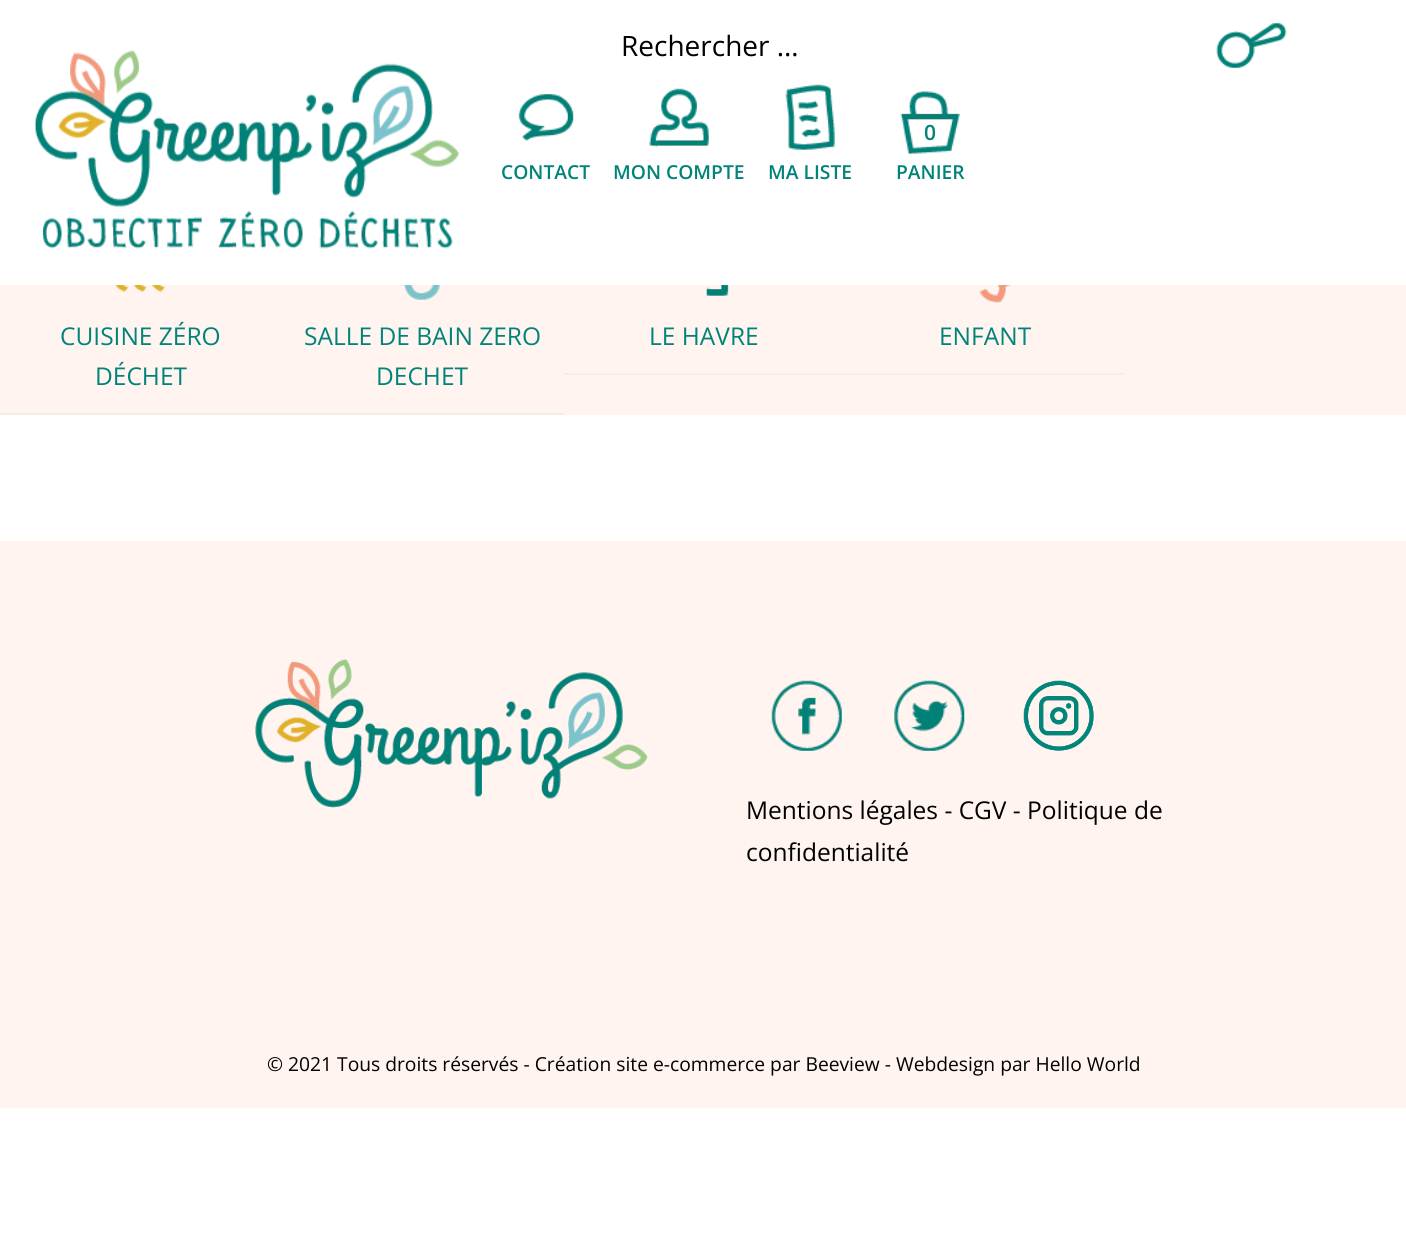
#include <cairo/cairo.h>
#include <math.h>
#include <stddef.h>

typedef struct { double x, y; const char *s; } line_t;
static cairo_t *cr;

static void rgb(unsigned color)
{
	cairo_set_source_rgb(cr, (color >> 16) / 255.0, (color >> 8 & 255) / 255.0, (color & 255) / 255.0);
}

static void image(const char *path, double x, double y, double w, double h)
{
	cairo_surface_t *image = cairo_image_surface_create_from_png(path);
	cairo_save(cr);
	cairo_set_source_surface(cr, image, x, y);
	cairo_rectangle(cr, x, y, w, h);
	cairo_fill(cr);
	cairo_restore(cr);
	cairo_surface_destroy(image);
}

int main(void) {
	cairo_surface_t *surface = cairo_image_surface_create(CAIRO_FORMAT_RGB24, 1406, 1251);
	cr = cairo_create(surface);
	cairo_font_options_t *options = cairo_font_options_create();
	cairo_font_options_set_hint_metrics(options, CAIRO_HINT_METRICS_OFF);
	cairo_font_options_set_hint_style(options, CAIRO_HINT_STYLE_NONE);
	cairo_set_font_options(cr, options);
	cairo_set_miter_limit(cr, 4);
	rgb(0xffffff);
	cairo_paint(cr);
	image("img/1.png", 1216, 23, 71, 45);
	image("img/2.png", 34, 50, 426, 199);
	image("img/3.png", 518, 94, 56, 47);
	image("img/4.png", 649, 88, 60, 60);
	image("img/5.png", 785, 84, 50, 66);
	image("img/6.png", 900, 91, 60, 63);
	rgb(0xfff4ef);
	cairo_rectangle(cr, 0, 285, 1406, 130);
	cairo_fill(cr);
	image("img/7.png", 115, 285, 50, 7);
	rgb(0xf7ede8);
	cairo_rectangle(cr, 0, 413, 564, 2);
	cairo_fill(cr);
	image("img/8.png", 403, 285, 37, 15);
	image("img/9.png", 706, 285, 23, 11);
	cairo_rectangle(cr, 564, 373, 561, 2);
	cairo_fill(cr);
	image("img/10.png", 979, 285, 33, 18);
	rgb(0xfff4ef);
	cairo_rectangle(cr, 0, 541, 1406, 567);
	cairo_fill(cr);
	image("img/11.png", 255, 659, 393, 149);
	image("img/12.png", 771, 680, 71, 71);
	image("img/13.png", 894, 680, 71, 71);
	image("img/14.png", 1023, 680, 71, 71);
	cairo_select_font_face(cr, "Open Sans", CAIRO_FONT_SLANT_NORMAL, CAIRO_FONT_WEIGHT_NORMAL);
	cairo_set_font_size(cr, 28);
	rgb(0x000000);
	cairo_move_to(cr, 621, 56);
	cairo_show_text(cr, "Rechercher …");
	cairo_select_font_face(cr, "Open Sans SemiBold", CAIRO_FONT_SLANT_NORMAL, CAIRO_FONT_WEIGHT_NORMAL);
	cairo_set_font_size(cr, 19.25);
	rgb(0x008378);
	{
		static const line_t items[] = {
			{501, 179, "CONTACT"},
			{613, 179, "MON COMPTE"},
			{768, 179, "MA LISTE"},
		};
		for (size_t i = 0; i < sizeof items / sizeof *items; i++) {
			cairo_move_to(cr, items[i].x, items[i].y);
			cairo_show_text(cr, items[i].s);
		}
	}
	cairo_set_font_size(cr, 21);
	cairo_move_to(cr, 924, 140);
	cairo_show_text(cr, "0");
	cairo_set_font_size(cr, 19.25);
	cairo_move_to(cr, 896, 179);
	cairo_show_text(cr, "PANIER");
	cairo_select_font_face(cr, "Open Sans", CAIRO_FONT_SLANT_NORMAL, CAIRO_FONT_WEIGHT_NORMAL);
	cairo_set_font_size(cr, 24.5);
	{
		static const line_t items[] = {
			{60, 345, "CUISINE ZÉRO"},
			{95, 385, "DÉCHET"},
			{304, 345, "SALLE DE BAIN ZERO"},
			{376, 385, "DECHET"},
			{649, 345, "LE HAVRE"},
			{939, 345, "ENFANT"},
		};
		for (size_t i = 0; i < sizeof items / sizeof *items; i++) {
			cairo_move_to(cr, items[i].x, items[i].y);
			cairo_show_text(cr, items[i].s);
		}
	}
	rgb(0x000000);
	cairo_move_to(cr, 746, 819);
	cairo_show_text(cr, "Mentions légales - CGV - Politique de");
	cairo_move_to(cr, 746, 861);
	cairo_show_text(cr, "confidentialité");
	cairo_set_font_size(cr, 19.25);
	cairo_move_to(cr, 267, 1071);
	cairo_show_text(cr, "© 2021 Tous droits réservés - Création site e-commerce par Beeview - Webdesign par Hello World");
	cairo_surface_write_to_png(surface, "page.png");
	cairo_font_options_destroy(options);
	cairo_destroy(cr);
	cairo_surface_destroy(surface);
	return 0;
}
